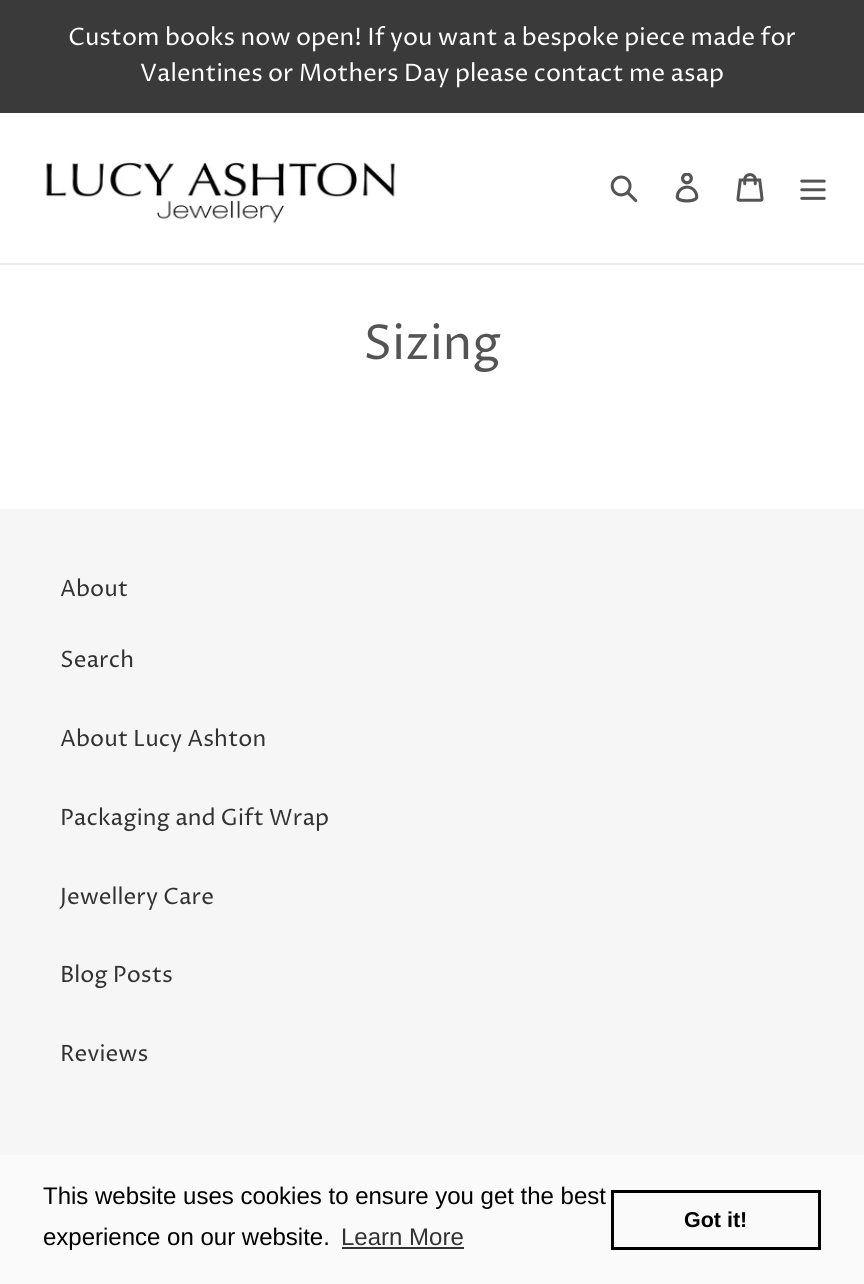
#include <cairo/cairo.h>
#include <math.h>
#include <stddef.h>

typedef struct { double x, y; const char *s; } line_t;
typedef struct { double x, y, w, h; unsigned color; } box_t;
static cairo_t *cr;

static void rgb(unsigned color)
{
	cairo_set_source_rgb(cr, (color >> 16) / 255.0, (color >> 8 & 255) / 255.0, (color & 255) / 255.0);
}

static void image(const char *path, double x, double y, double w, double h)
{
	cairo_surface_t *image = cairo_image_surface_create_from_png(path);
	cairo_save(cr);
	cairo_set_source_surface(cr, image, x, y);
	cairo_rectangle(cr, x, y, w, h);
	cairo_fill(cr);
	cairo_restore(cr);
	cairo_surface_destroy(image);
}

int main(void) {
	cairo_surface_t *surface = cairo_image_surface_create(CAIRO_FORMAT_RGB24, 864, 1284);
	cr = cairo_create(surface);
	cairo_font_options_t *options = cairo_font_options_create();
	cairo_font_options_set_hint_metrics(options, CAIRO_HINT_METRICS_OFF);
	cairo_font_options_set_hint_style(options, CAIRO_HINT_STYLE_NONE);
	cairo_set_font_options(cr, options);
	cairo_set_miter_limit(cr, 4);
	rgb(0xffffff);
	cairo_paint(cr);
	rgb(0x3a3a3a);
	cairo_rectangle(cr, 0, 0, 864, 113);
	cairo_fill(cr);
	rgb(0xebebeb);
	cairo_rectangle(cr, 0, 263, 864, 2);
	cairo_fill(cr);
	image("img/1.png", 46, 162, 350, 61);
	image("img/2.png", 610, 175, 28, 28);
	image("img/3.png", 675, 173, 24, 30);
	image("img/4.png", 736, 173, 28, 29);
	image("img/5.png", 800, 179, 26, 21);
	{
		static const box_t items[] = {
			{0, 509, 864, 646, 0xf6f6f6},
			{0, 1155, 864, 129, 0xfafafa},
			{342, 1247, 122, 2, 0x323232},
		};
		for (size_t i = 0; i < sizeof items / sizeof *items; i++) {
			rgb(items[i].color);
			cairo_rectangle(cr, items[i].x, items[i].y, items[i].w, items[i].h);
			cairo_fill(cr);
		}
	}
	cairo_rectangle(cr, 612.5, 1191.5, 207, 57);
	rgb(0x000000);
	cairo_set_line_width(cr, 3);
	cairo_stroke(cr);
	cairo_select_font_face(cr, "Proza Libre", CAIRO_FONT_SLANT_NORMAL, CAIRO_FONT_WEIGHT_NORMAL);
	cairo_set_font_size(cr, 24);
	rgb(0xffffff);
	cairo_move_to(cr, 68, 45);
	cairo_show_text(cr, "Custom books now open! If you want a bespoke piece made for");
	cairo_move_to(cr, 140, 81);
	cairo_show_text(cr, "Valentines or Mothers Day please contact me asap");
	cairo_set_font_size(cr, 48);
	rgb(0x545454);
	cairo_move_to(cr, 363, 359);
	cairo_show_text(cr, "Sizing");
	cairo_set_font_size(cr, 22.5);
	rgb(0x333232);
	{
		static const line_t items[] = {
			{60, 596, "About"},
			{60, 667, "Search"},
			{60, 746, "About Lucy Ashton"},
			{60, 825, "Packaging and Gift Wrap"},
			{60, 904, "Jewellery Care"},
			{60, 982, "Blog Posts"},
			{60, 1061, "Reviews"},
		};
		for (size_t i = 0; i < sizeof items / sizeof *items; i++) {
			cairo_move_to(cr, items[i].x, items[i].y);
			cairo_show_text(cr, items[i].s);
		}
	}
	cairo_select_font_face(cr, "Liberation Sans", CAIRO_FONT_SLANT_NORMAL, CAIRO_FONT_WEIGHT_NORMAL);
	cairo_set_font_size(cr, 24);
	rgb(0x000000);
	cairo_move_to(cr, 43, 1204);
	cairo_show_text(cr, "This website uses cookies to ensure you get the best");
	cairo_move_to(cr, 43, 1245);
	cairo_show_text(cr, "experience on our website.");
	rgb(0x333232);
	cairo_move_to(cr, 341, 1245);
	cairo_show_text(cr, "Learn More");
	cairo_select_font_face(cr, "Liberation Sans", CAIRO_FONT_SLANT_NORMAL, CAIRO_FONT_WEIGHT_BOLD);
	cairo_set_font_size(cr, 21.5);
	rgb(0x000000);
	cairo_move_to(cr, 684, 1227);
	cairo_show_text(cr, "Got it!");
	cairo_surface_write_to_png(surface, "page.png");
	cairo_font_options_destroy(options);
	cairo_destroy(cr);
	cairo_surface_destroy(surface);
	return 0;
}
